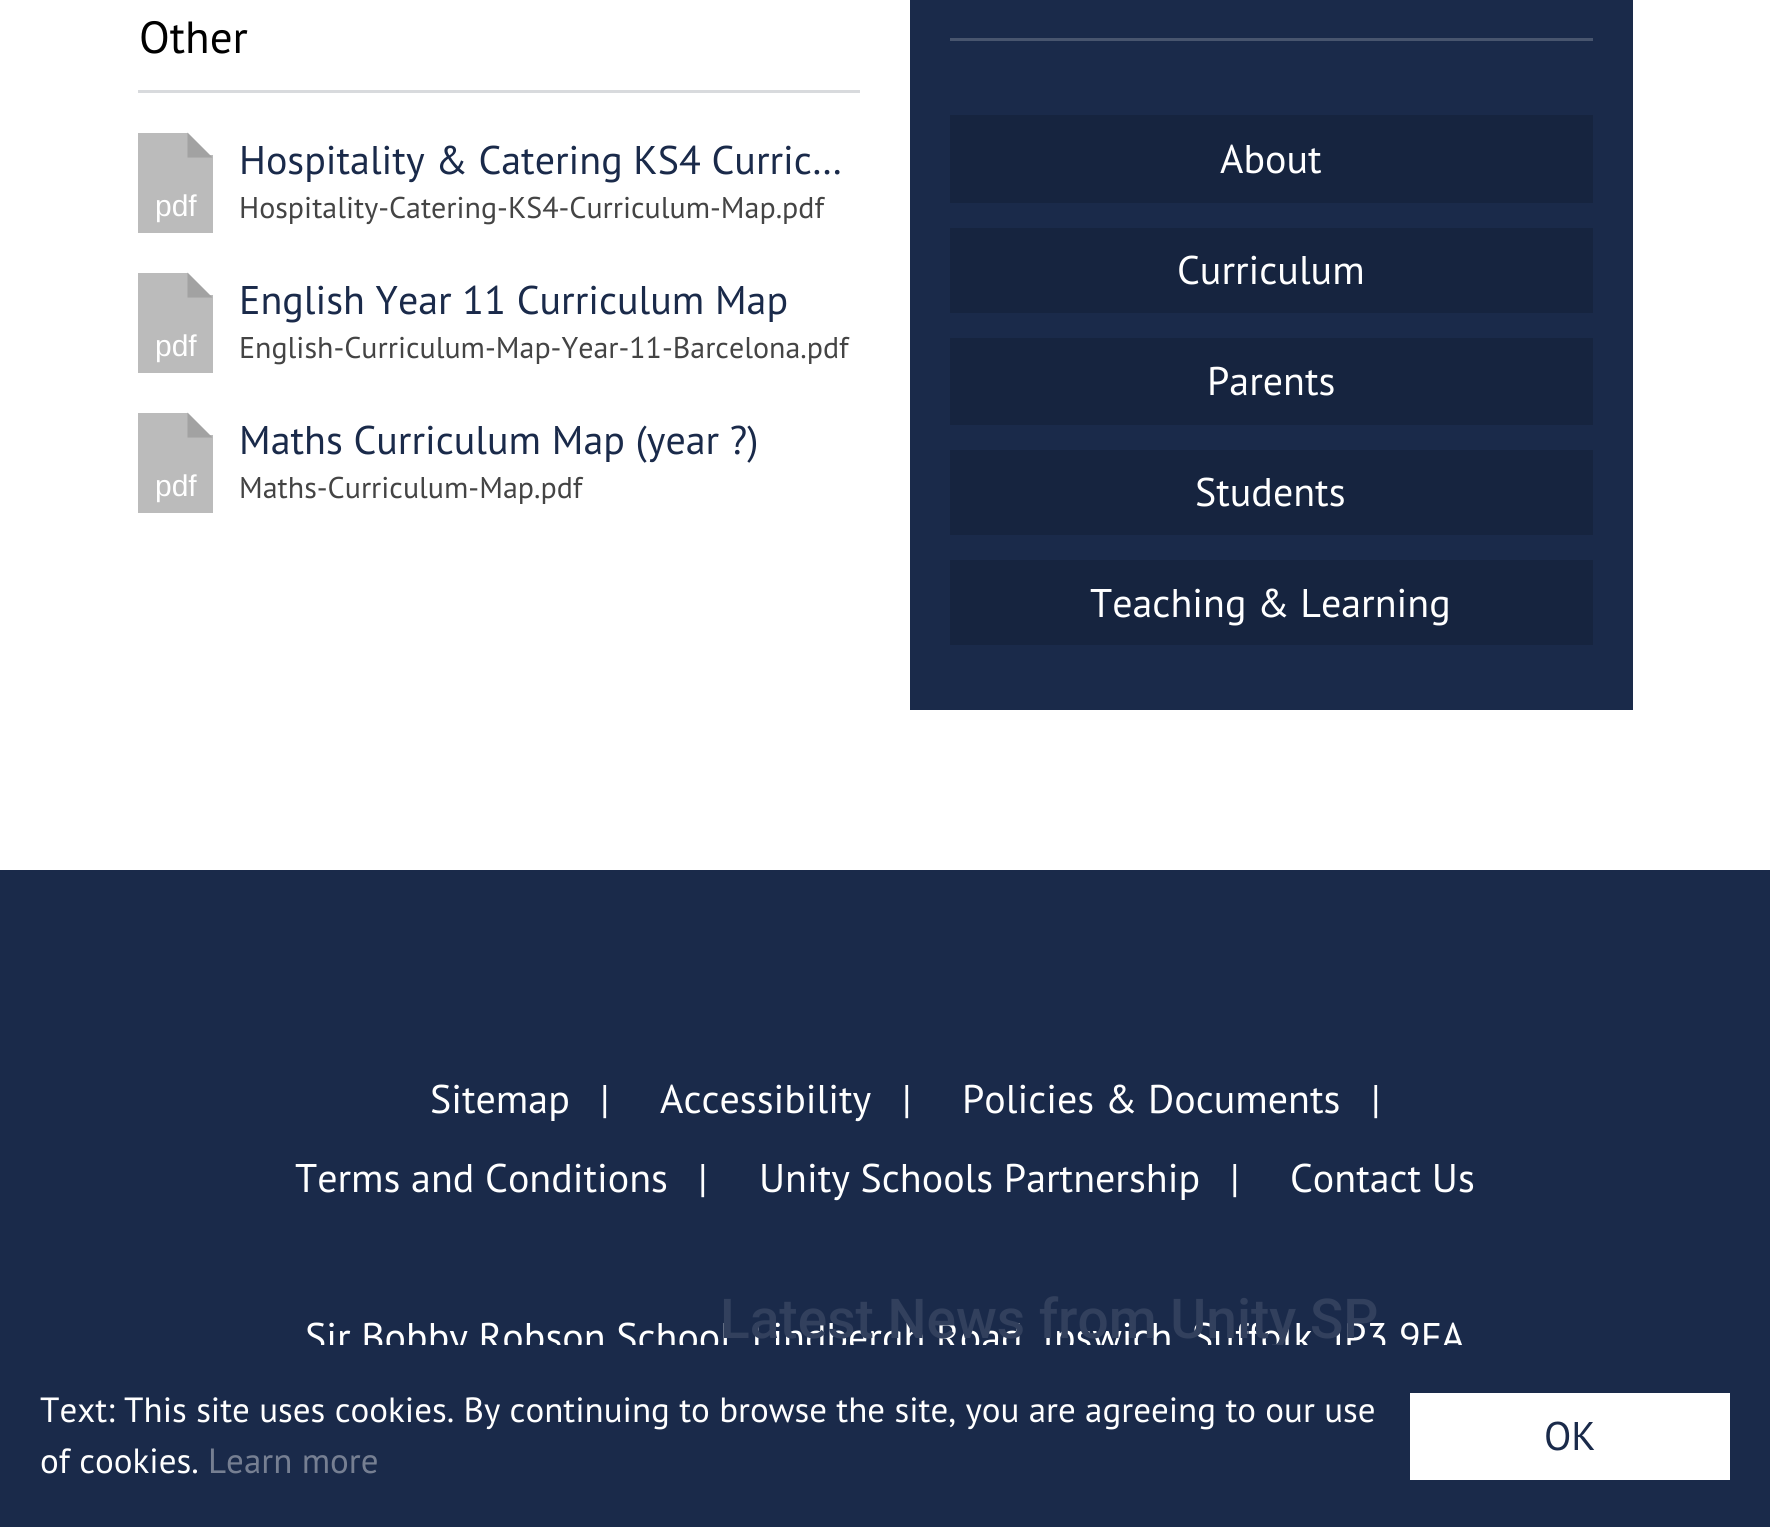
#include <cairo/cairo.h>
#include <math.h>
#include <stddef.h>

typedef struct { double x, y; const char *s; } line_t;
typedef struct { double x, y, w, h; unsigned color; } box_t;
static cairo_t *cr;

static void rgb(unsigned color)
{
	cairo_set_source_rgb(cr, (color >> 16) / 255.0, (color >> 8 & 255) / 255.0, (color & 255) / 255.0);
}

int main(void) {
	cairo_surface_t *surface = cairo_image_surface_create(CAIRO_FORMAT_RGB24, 1770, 1527);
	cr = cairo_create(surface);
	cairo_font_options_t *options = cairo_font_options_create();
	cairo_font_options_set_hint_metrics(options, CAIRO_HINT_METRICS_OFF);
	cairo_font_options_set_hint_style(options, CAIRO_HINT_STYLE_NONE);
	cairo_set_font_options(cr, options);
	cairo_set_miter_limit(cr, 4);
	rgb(0xffffff);
	cairo_paint(cr);
	{
		static const box_t items[] = {
			{138, 90, 722, 3, 0xd8dadd},
			{138, 133, 50, 22, 0xbbbbbb},
			{138, 155, 75, 78, 0xbbbbbb},
		};
		for (size_t i = 0; i < sizeof items / sizeof *items; i++) {
			rgb(items[i].color);
			cairo_rectangle(cr, items[i].x, items[i].y, items[i].w, items[i].h);
			cairo_fill(cr);
		}
	}
	rgb(0xa2a2a2);
	cairo_new_path(cr);
	cairo_move_to(cr, 187.5, 157.5);
	cairo_line_to(cr, 187.5, 132.5);
	cairo_line_to(cr, 212.5, 157.5);
	cairo_close_path(cr);
	cairo_fill(cr);
	rgb(0xbbbbbb);
	cairo_rectangle(cr, 138, 273, 50, 22);
	cairo_fill(cr);
	cairo_rectangle(cr, 138, 295, 75, 78);
	cairo_fill(cr);
	rgb(0xa2a2a2);
	cairo_new_path(cr);
	cairo_move_to(cr, 187.5, 297.5);
	cairo_line_to(cr, 187.5, 272.5);
	cairo_line_to(cr, 212.5, 297.5);
	cairo_close_path(cr);
	cairo_fill(cr);
	rgb(0xbbbbbb);
	cairo_rectangle(cr, 138, 413, 50, 22);
	cairo_fill(cr);
	cairo_rectangle(cr, 138, 435, 75, 78);
	cairo_fill(cr);
	rgb(0xa2a2a2);
	cairo_new_path(cr);
	cairo_move_to(cr, 187.5, 437.5);
	cairo_line_to(cr, 187.5, 412.5);
	cairo_line_to(cr, 212.5, 437.5);
	cairo_close_path(cr);
	cairo_fill(cr);
	{
		static const box_t items[] = {
			{910, 0, 723, 710, 0x1a2a4a},
			{950, 38, 643, 3, 0x48556e},
			{950, 115, 643, 88, 0x16243f},
			{950, 228, 643, 85, 0x16243f},
			{950, 338, 643, 87, 0x16243f},
			{950, 450, 643, 85, 0x16243f},
			{950, 560, 643, 85, 0x16243f},
			{0, 870, 1770, 475, 0x1a2a4a},
		};
		for (size_t i = 0; i < sizeof items / sizeof *items; i++) {
			rgb(items[i].color);
			cairo_rectangle(cr, items[i].x, items[i].y, items[i].w, items[i].h);
			cairo_fill(cr);
		}
	}
	cairo_select_font_face(cr, "PT Sans", CAIRO_FONT_SLANT_NORMAL, CAIRO_FONT_WEIGHT_NORMAL);
	cairo_set_font_size(cr, 45);
	rgb(0x000000);
	cairo_move_to(cr, 139, 53);
	cairo_show_text(cr, "Other");
	cairo_select_font_face(cr, "Liberation Sans", CAIRO_FONT_SLANT_NORMAL, CAIRO_FONT_WEIGHT_NORMAL);
	cairo_set_font_size(cr, 30);
	rgb(0xffffff);
	cairo_move_to(cr, 155, 216);
	cairo_show_text(cr, "pdf");
	cairo_select_font_face(cr, "PT Sans", CAIRO_FONT_SLANT_NORMAL, CAIRO_FONT_WEIGHT_NORMAL);
	cairo_set_font_size(cr, 40);
	rgb(0x1a2a4a);
	cairo_move_to(cr, 239, 174);
	cairo_show_text(cr, "Hospitality & Catering KS4 Curric…");
	cairo_set_font_size(cr, 30);
	rgb(0x444444);
	cairo_move_to(cr, 239, 218);
	cairo_show_text(cr, "Hospitality-Catering-KS4-Curriculum-Map.pdf");
	cairo_select_font_face(cr, "Liberation Sans", CAIRO_FONT_SLANT_NORMAL, CAIRO_FONT_WEIGHT_NORMAL);
	rgb(0xffffff);
	cairo_move_to(cr, 155, 356);
	cairo_show_text(cr, "pdf");
	cairo_select_font_face(cr, "PT Sans", CAIRO_FONT_SLANT_NORMAL, CAIRO_FONT_WEIGHT_NORMAL);
	cairo_set_font_size(cr, 40);
	rgb(0x1a2a4a);
	cairo_move_to(cr, 239, 314);
	cairo_show_text(cr, "English Year 11 Curriculum Map");
	cairo_set_font_size(cr, 30);
	rgb(0x444444);
	cairo_move_to(cr, 239, 358);
	cairo_show_text(cr, "English-Curriculum-Map-Year-11-Barcelona.pdf");
	cairo_select_font_face(cr, "Liberation Sans", CAIRO_FONT_SLANT_NORMAL, CAIRO_FONT_WEIGHT_NORMAL);
	rgb(0xffffff);
	cairo_move_to(cr, 155, 496);
	cairo_show_text(cr, "pdf");
	cairo_select_font_face(cr, "PT Sans", CAIRO_FONT_SLANT_NORMAL, CAIRO_FONT_WEIGHT_NORMAL);
	cairo_set_font_size(cr, 40);
	rgb(0x1a2a4a);
	cairo_move_to(cr, 239, 454);
	cairo_show_text(cr, "Maths Curriculum Map (year ?)");
	cairo_set_font_size(cr, 30);
	rgb(0x444444);
	cairo_move_to(cr, 239, 498);
	cairo_show_text(cr, "Maths-Curriculum-Map.pdf");
	cairo_set_font_size(cr, 40);
	rgb(0xffffff);
	{
		static const line_t items[] = {
			{1220, 173, "About"},
			{1177, 284, "Curriculum"},
			{1207, 395, "Parents"},
			{1195, 506, "Students"},
			{1090, 617, "Teaching & Learning"},
			{430, 1113, "Sitemap"},
			{600, 1113, "|"},
			{660, 1113, "Accessibility"},
			{902, 1113, "|"},
			{962, 1113, "Policies & Documents"},
			{1371, 1113, "|"},
			{295, 1192, "Terms and Conditions"},
			{698, 1192, "|"},
			{759, 1192, "Unity Schools Partnership"},
			{1230, 1192, "|"},
			{1290, 1192, "Contact Us"},
			{305, 1351, "Sir Bobby Robson School, Lindbergh Road, Ipswich, Suffolk, IP3 9FA"},
		};
		for (size_t i = 0; i < sizeof items / sizeof *items; i++) {
			cairo_move_to(cr, items[i].x, items[i].y);
			cairo_show_text(cr, items[i].s);
		}
	}
	cairo_select_font_face(cr, "Roboto Medium", CAIRO_FONT_SLANT_NORMAL, CAIRO_FONT_WEIGHT_NORMAL);
	cairo_set_font_size(cr, 55);
	rgb(0x32405d);
	cairo_move_to(cr, 720, 1338);
	cairo_show_text(cr, "Latest News from Unity SP");
	rgb(0x1a2a4a);
	cairo_rectangle(cr, 0, 1345, 1770, 182);
	cairo_fill(cr);
	cairo_select_font_face(cr, "PT Sans", CAIRO_FONT_SLANT_NORMAL, CAIRO_FONT_WEIGHT_NORMAL);
	cairo_set_font_size(cr, 35);
	rgb(0xffffff);
	cairo_move_to(cr, 40, 1422);
	cairo_show_text(cr, "Text: This site uses cookies. By continuing to browse the site, you are agreeing to our use");
	cairo_move_to(cr, 40, 1473);
	cairo_show_text(cr, "of cookies.");
	rgb(0x767f92);
	cairo_move_to(cr, 208, 1473);
	cairo_show_text(cr, "Learn more");
	rgb(0xffffff);
	cairo_rectangle(cr, 1410, 1393, 320, 87);
	cairo_fill(cr);
	cairo_set_font_size(cr, 40);
	rgb(0x1a2a4a);
	cairo_move_to(cr, 1544, 1450);
	cairo_show_text(cr, "OK");
	cairo_surface_write_to_png(surface, "page.png");
	cairo_font_options_destroy(options);
	cairo_destroy(cr);
	cairo_surface_destroy(surface);
	return 0;
}
